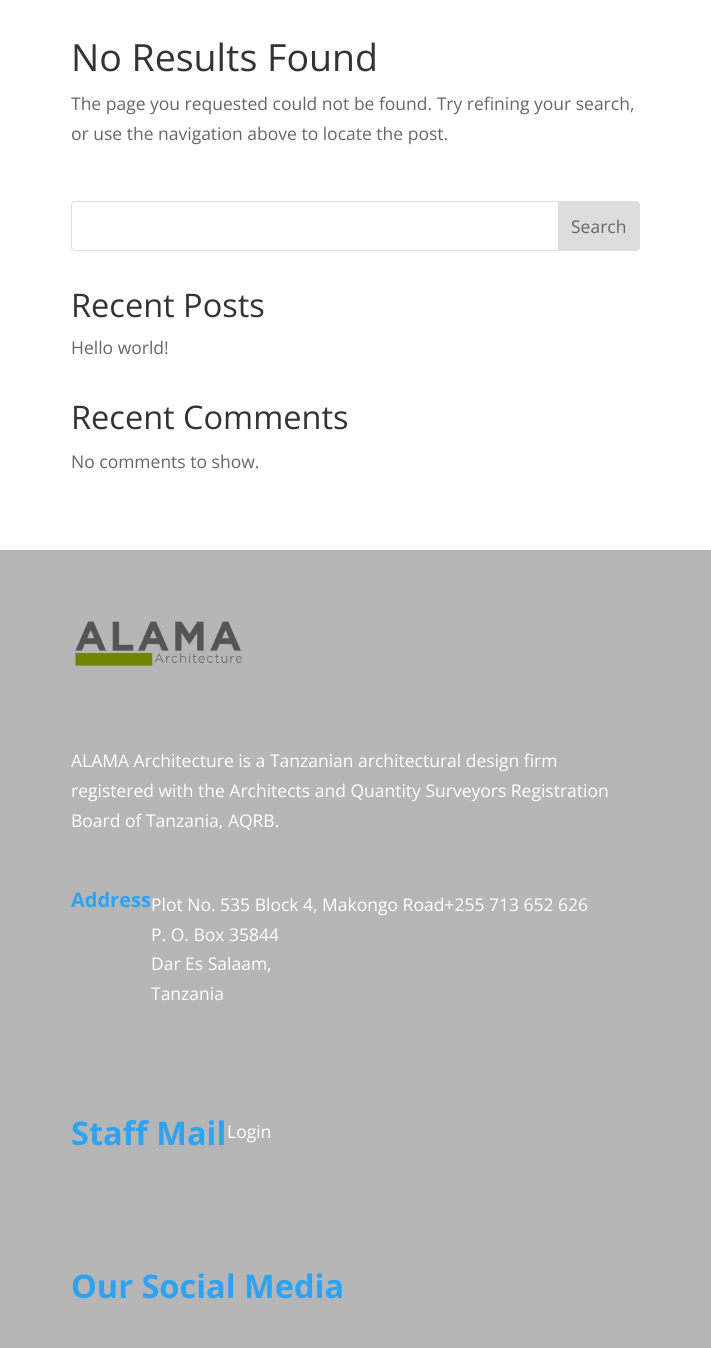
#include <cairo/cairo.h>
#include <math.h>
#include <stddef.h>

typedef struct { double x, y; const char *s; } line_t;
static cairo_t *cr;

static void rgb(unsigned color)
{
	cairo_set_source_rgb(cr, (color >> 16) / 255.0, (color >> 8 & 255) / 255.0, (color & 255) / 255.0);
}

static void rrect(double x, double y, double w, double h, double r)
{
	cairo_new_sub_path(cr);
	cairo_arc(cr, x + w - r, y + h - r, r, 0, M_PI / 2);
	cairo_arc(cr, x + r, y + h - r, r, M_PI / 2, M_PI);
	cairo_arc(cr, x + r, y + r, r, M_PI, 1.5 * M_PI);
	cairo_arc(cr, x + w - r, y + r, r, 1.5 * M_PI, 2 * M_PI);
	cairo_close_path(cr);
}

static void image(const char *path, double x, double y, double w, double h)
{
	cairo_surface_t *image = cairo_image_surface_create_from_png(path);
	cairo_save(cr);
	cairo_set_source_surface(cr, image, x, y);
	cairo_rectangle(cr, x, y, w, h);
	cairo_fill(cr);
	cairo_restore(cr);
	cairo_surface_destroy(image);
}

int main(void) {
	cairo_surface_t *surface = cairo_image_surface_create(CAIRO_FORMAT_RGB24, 711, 1348);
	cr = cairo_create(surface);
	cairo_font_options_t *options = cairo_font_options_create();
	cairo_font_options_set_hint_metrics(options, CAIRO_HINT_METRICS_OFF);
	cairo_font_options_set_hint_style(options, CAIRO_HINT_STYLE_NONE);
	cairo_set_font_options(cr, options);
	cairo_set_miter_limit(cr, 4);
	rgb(0xffffff);
	cairo_paint(cr);
	rrect(71.5, 201.5, 568, 49, 3.5);
	rgb(0xdddddd);
	cairo_set_line_width(cr, 1);
	cairo_stroke(cr);
	cairo_new_path(cr);
	cairo_move_to(cr, 558.5, 201.5);
	cairo_line_to(cr, 636, 201.5);
	cairo_curve_to(cr, 638, 201.5, 639.5, 203, 639.5, 205);
	cairo_line_to(cr, 639.5, 247);
	cairo_curve_to(cr, 639.5, 249, 638, 250.5, 636, 250.5);
	cairo_line_to(cr, 558.5, 250.5);
	cairo_close_path(cr);
	cairo_fill_preserve(cr);
	cairo_stroke(cr);
	rgb(0xb6b6b6);
	cairo_rectangle(cr, 0, 550, 711, 798);
	cairo_fill(cr);
	image("img/1.png", 75, 621, 167, 45);
	cairo_select_font_face(cr, "Open Sans", CAIRO_FONT_SLANT_NORMAL, CAIRO_FONT_WEIGHT_NORMAL);
	cairo_set_font_size(cr, 37.5);
	rgb(0x333333);
	cairo_move_to(cr, 71, 71);
	cairo_show_text(cr, "No Results Found");
	cairo_set_font_size(cr, 17.5);
	rgb(0x666666);
	{
		static const line_t items[] = {
			{71, 110, "The page you requested could not be found. Try refining your search,"},
			{71, 140, "or use the navigation above to locate the post."},
			{571, 233, "Search"},
		};
		for (size_t i = 0; i < sizeof items / sizeof *items; i++) {
			cairo_move_to(cr, items[i].x, items[i].y);
			cairo_show_text(cr, items[i].s);
		}
	}
	cairo_set_font_size(cr, 32.5);
	rgb(0x333333);
	cairo_move_to(cr, 71, 317);
	cairo_show_text(cr, "Recent Posts");
	cairo_set_font_size(cr, 17.5);
	rgb(0x666666);
	cairo_move_to(cr, 71, 354);
	cairo_show_text(cr, "Hello world!");
	cairo_set_font_size(cr, 32.5);
	rgb(0x333333);
	cairo_move_to(cr, 71, 429);
	cairo_show_text(cr, "Recent Comments");
	cairo_set_font_size(cr, 17.5);
	rgb(0x666666);
	cairo_move_to(cr, 71, 468);
	cairo_show_text(cr, "No comments to show.");
	rgb(0xffffff);
	{
		static const line_t items[] = {
			{71, 767, "ALAMA Architecture is a Tanzanian architectural design firm"},
			{71, 797, "registered with the Architects and Quantity Surveyors Registration"},
			{71, 827, "Board of Tanzania, AQRB."},
		};
		for (size_t i = 0; i < sizeof items / sizeof *items; i++) {
			cairo_move_to(cr, items[i].x, items[i].y);
			cairo_show_text(cr, items[i].s);
		}
	}
	cairo_select_font_face(cr, "Open Sans", CAIRO_FONT_SLANT_NORMAL, CAIRO_FONT_WEIGHT_BOLD);
	cairo_set_font_size(cr, 20);
	rgb(0x2ea3f2);
	cairo_move_to(cr, 71, 907);
	cairo_show_text(cr, "Address");
	cairo_select_font_face(cr, "Open Sans", CAIRO_FONT_SLANT_NORMAL, CAIRO_FONT_WEIGHT_NORMAL);
	cairo_set_font_size(cr, 17.5);
	rgb(0xffffff);
	{
		static const line_t items[] = {
			{151, 911, "Plot No. 535 Block 4, Makongo Road+255 713 652 626"},
			{151, 941, "P. O. Box 35844"},
			{151, 970, "Dar Es Salaam,"},
			{151, 1000, "Tanzania"},
		};
		for (size_t i = 0; i < sizeof items / sizeof *items; i++) {
			cairo_move_to(cr, items[i].x, items[i].y);
			cairo_show_text(cr, items[i].s);
		}
	}
	cairo_select_font_face(cr, "Open Sans", CAIRO_FONT_SLANT_NORMAL, CAIRO_FONT_WEIGHT_BOLD);
	cairo_set_font_size(cr, 32.5);
	rgb(0x2ea3f2);
	cairo_move_to(cr, 71, 1145);
	cairo_show_text(cr, "Staff Mail");
	cairo_select_font_face(cr, "Open Sans", CAIRO_FONT_SLANT_NORMAL, CAIRO_FONT_WEIGHT_NORMAL);
	cairo_set_font_size(cr, 17.5);
	rgb(0xffffff);
	cairo_move_to(cr, 227, 1138);
	cairo_show_text(cr, "Login");
	cairo_select_font_face(cr, "Open Sans", CAIRO_FONT_SLANT_NORMAL, CAIRO_FONT_WEIGHT_BOLD);
	cairo_set_font_size(cr, 32.5);
	rgb(0x2ea3f2);
	cairo_move_to(cr, 71, 1298);
	cairo_show_text(cr, "Our Social Media");
	cairo_surface_write_to_png(surface, "page.png");
	cairo_font_options_destroy(options);
	cairo_destroy(cr);
	cairo_surface_destroy(surface);
	return 0;
}
